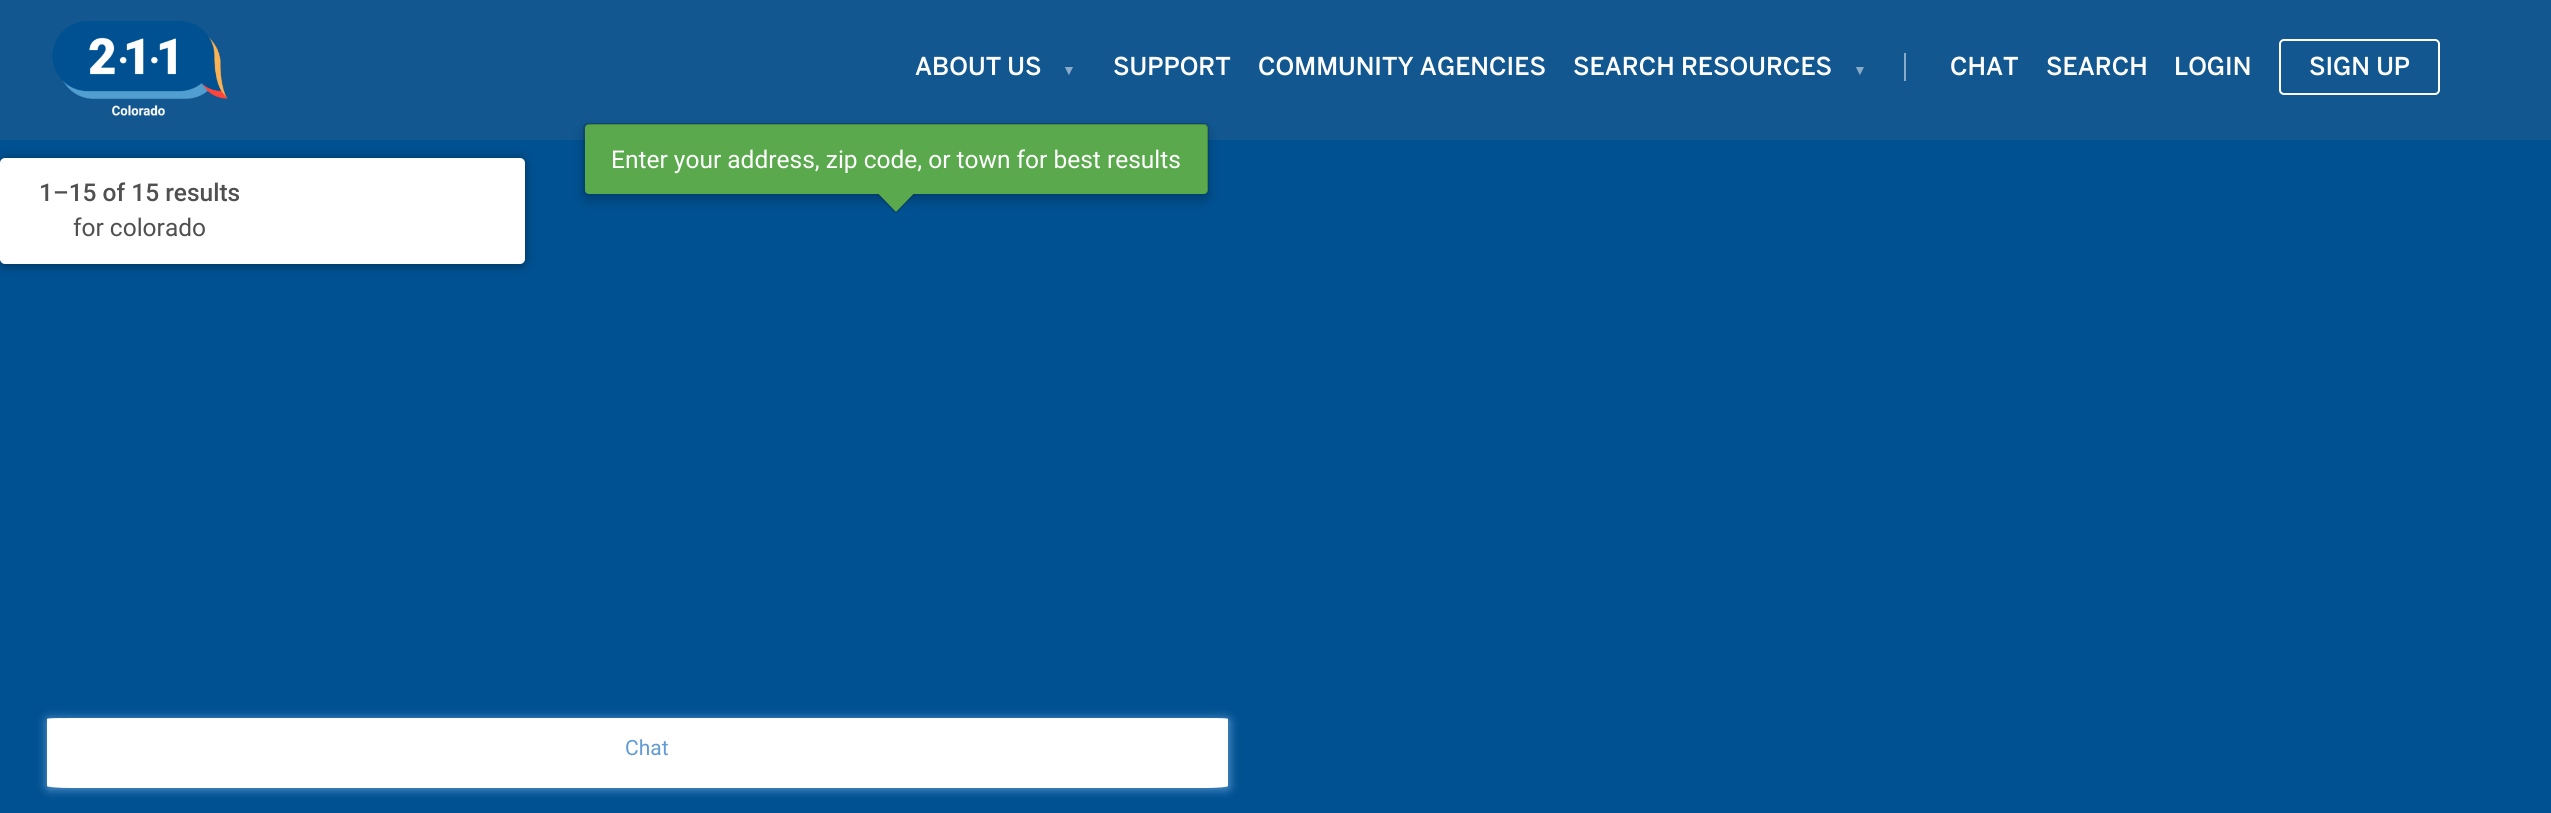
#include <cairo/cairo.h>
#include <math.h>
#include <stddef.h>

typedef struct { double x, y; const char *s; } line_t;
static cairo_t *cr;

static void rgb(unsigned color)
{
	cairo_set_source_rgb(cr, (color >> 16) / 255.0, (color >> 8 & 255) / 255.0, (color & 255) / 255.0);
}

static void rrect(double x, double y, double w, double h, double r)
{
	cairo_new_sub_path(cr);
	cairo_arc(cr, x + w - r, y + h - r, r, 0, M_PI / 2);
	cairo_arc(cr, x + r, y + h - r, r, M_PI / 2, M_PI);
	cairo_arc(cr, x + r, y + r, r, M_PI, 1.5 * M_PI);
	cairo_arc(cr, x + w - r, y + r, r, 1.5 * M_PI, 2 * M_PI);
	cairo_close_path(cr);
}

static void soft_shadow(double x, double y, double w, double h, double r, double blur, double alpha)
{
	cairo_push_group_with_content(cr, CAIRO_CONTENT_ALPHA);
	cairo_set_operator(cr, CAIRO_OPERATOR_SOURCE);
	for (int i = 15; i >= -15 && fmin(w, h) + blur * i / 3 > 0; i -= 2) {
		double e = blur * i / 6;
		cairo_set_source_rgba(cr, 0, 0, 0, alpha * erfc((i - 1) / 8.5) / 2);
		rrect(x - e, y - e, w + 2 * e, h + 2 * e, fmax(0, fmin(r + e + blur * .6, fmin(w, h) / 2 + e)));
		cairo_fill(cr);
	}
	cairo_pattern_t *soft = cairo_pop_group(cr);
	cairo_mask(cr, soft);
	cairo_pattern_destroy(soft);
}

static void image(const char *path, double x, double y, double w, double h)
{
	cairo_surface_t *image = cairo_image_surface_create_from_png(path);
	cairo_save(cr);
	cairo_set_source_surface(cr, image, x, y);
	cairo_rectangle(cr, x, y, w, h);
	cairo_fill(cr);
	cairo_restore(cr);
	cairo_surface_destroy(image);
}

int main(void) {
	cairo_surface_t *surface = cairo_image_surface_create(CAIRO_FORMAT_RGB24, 2551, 813);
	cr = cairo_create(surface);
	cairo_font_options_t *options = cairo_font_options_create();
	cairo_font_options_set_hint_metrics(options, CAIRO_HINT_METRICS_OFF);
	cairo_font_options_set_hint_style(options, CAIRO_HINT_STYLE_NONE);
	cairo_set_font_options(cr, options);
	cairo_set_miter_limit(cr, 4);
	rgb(0x005191);
	cairo_paint(cr);
	rgb(0x125790);
	cairo_rectangle(cr, 0, 0, 2551, 140);
	cairo_fill(cr);
	image("img/1.png", 52, 21, 176, 95);
	rgb(0x89abc8);
	cairo_rectangle(cr, 1904, 53, 2, 28);
	cairo_fill(cr);
	rrect(2280, 40, 159, 54, 4);
	rgb(0xffffff);
	cairo_stroke(cr);
	cairo_save(cr);
	cairo_set_fill_rule(cr, CAIRO_FILL_RULE_EVEN_ODD);
	cairo_new_path(cr);
	cairo_move_to(cr, 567, 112);
	cairo_line_to(cr, 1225, 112);
	cairo_line_to(cr, 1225, 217);
	cairo_line_to(cr, 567, 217);
	cairo_close_path(cr);
	cairo_move_to(cr, 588, 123);
	cairo_line_to(cr, 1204, 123);
	cairo_curve_to(cr, 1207, 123, 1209, 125, 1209, 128);
	cairo_line_to(cr, 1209, 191);
	cairo_curve_to(cr, 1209, 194, 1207, 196, 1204, 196);
	cairo_line_to(cr, 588, 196);
	cairo_curve_to(cr, 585, 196, 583, 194, 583, 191);
	cairo_line_to(cr, 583, 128);
	cairo_curve_to(cr, 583, 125, 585, 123, 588, 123);
	cairo_close_path(cr);
	cairo_clip(cr);
	rgb(0x000000);
	soft_shadow(583, 128, 626, 73, 5, 5, 0.2);
	cairo_restore(cr);
	rgb(0x5aa94d);
	rrect(585, 124, 623, 70, 4);
	cairo_fill(cr);
	rrect(584, 124, 624, 71, 4);
	cairo_set_source_rgba(cr, 0, 0, 0, 0.2);
	cairo_stroke(cr);
	cairo_set_source_rgba(cr, 0, 0, 0, 0.25);
	cairo_new_path(cr);
	cairo_move_to(cr, 877, 194);
	cairo_line_to(cr, 915, 194);
	cairo_line_to(cr, 896, 213.5);
	cairo_close_path(cr);
	cairo_fill(cr);
	rgb(0x5aa94d);
	cairo_new_path(cr);
	cairo_move_to(cr, 878.5, 194);
	cairo_line_to(cr, 913.5, 194);
	cairo_line_to(cr, 896, 212);
	cairo_close_path(cr);
	cairo_fill(cr);
	rgb(0x000000);
	soft_shadow(0, 159, 525, 107, 5, 5, 0.36);
	rgb(0xffffff);
	rrect(0, 158, 525, 106, 5);
	cairo_fill(cr);
	rgb(0x629ad4);
	soft_shadow(47, 719, 1182, 70, 2, 5, 1);
	rgb(0xffffff);
	cairo_new_path(cr);
	cairo_move_to(cr, 71, 718);
	cairo_line_to(cr, 1205, 718);
	cairo_curve_to(cr, 1218, 718, 1228, 718, 1228, 719);
	cairo_line_to(cr, 1228, 786);
	cairo_curve_to(cr, 1228, 787, 1218, 788, 1205, 788);
	cairo_line_to(cr, 71, 788);
	cairo_curve_to(cr, 58, 788, 47, 787, 47, 786);
	cairo_line_to(cr, 47, 719);
	cairo_curve_to(cr, 47, 718, 58, 718, 71, 718);
	cairo_close_path(cr);
	cairo_fill(cr);
	cairo_select_font_face(cr, "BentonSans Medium", CAIRO_FONT_SLANT_NORMAL, CAIRO_FONT_WEIGHT_NORMAL);
	cairo_set_font_size(cr, 24.5);
	cairo_move_to(cr, 915, 75);
	cairo_show_text(cr, "ABOUT US");
	cairo_select_font_face(cr, "Liberation Sans", CAIRO_FONT_SLANT_NORMAL, CAIRO_FONT_WEIGHT_NORMAL);
	cairo_set_font_size(cr, 14);
	rgb(0x89abc8);
	cairo_move_to(cr, 1062, 75);
	cairo_show_text(cr, "▼");
	cairo_select_font_face(cr, "BentonSans Medium", CAIRO_FONT_SLANT_NORMAL, CAIRO_FONT_WEIGHT_NORMAL);
	cairo_set_font_size(cr, 24.5);
	rgb(0xffffff);
	{
		static const line_t items[] = {
			{1113, 75, "SUPPORT"},
			{1258, 75, "COMMUNITY AGENCIES"},
			{1573, 75, "SEARCH RESOURCES"},
		};
		for (size_t i = 0; i < sizeof items / sizeof *items; i++) {
			cairo_move_to(cr, items[i].x, items[i].y);
			cairo_show_text(cr, items[i].s);
		}
	}
	cairo_select_font_face(cr, "Liberation Sans", CAIRO_FONT_SLANT_NORMAL, CAIRO_FONT_WEIGHT_NORMAL);
	cairo_set_font_size(cr, 14);
	rgb(0x89abc8);
	cairo_move_to(cr, 1853, 75);
	cairo_show_text(cr, "▼");
	cairo_select_font_face(cr, "BentonSans Medium", CAIRO_FONT_SLANT_NORMAL, CAIRO_FONT_WEIGHT_NORMAL);
	cairo_set_font_size(cr, 24.5);
	rgb(0xffffff);
	{
		static const line_t items[] = {
			{1950, 75, "CHAT"},
			{2046, 75, "SEARCH"},
			{2174, 75, "LOGIN"},
			{2309, 75, "SIGN UP"},
		};
		for (size_t i = 0; i < sizeof items / sizeof *items; i++) {
			cairo_move_to(cr, items[i].x, items[i].y);
			cairo_show_text(cr, items[i].s);
		}
	}
	cairo_select_font_face(cr, "Roboto", CAIRO_FONT_SLANT_NORMAL, CAIRO_FONT_WEIGHT_NORMAL);
	cairo_move_to(cr, 611, 168);
	cairo_show_text(cr, "Enter your address, zip code, or town for best results");
	cairo_select_font_face(cr, "Roboto Medium", CAIRO_FONT_SLANT_NORMAL, CAIRO_FONT_WEIGHT_NORMAL);
	rgb(0x505050);
	cairo_move_to(cr, 39, 201);
	cairo_show_text(cr, "1–15 of 15 results");
	cairo_select_font_face(cr, "Roboto", CAIRO_FONT_SLANT_NORMAL, CAIRO_FONT_WEIGHT_NORMAL);
	cairo_move_to(cr, 73, 236);
	cairo_show_text(cr, "for colorado");
	cairo_set_font_size(cr, 21);
	rgb(0x629ad4);
	cairo_move_to(cr, 625, 755);
	cairo_show_text(cr, "Chat");
	cairo_surface_write_to_png(surface, "page.png");
	cairo_font_options_destroy(options);
	cairo_destroy(cr);
	cairo_surface_destroy(surface);
	return 0;
}
